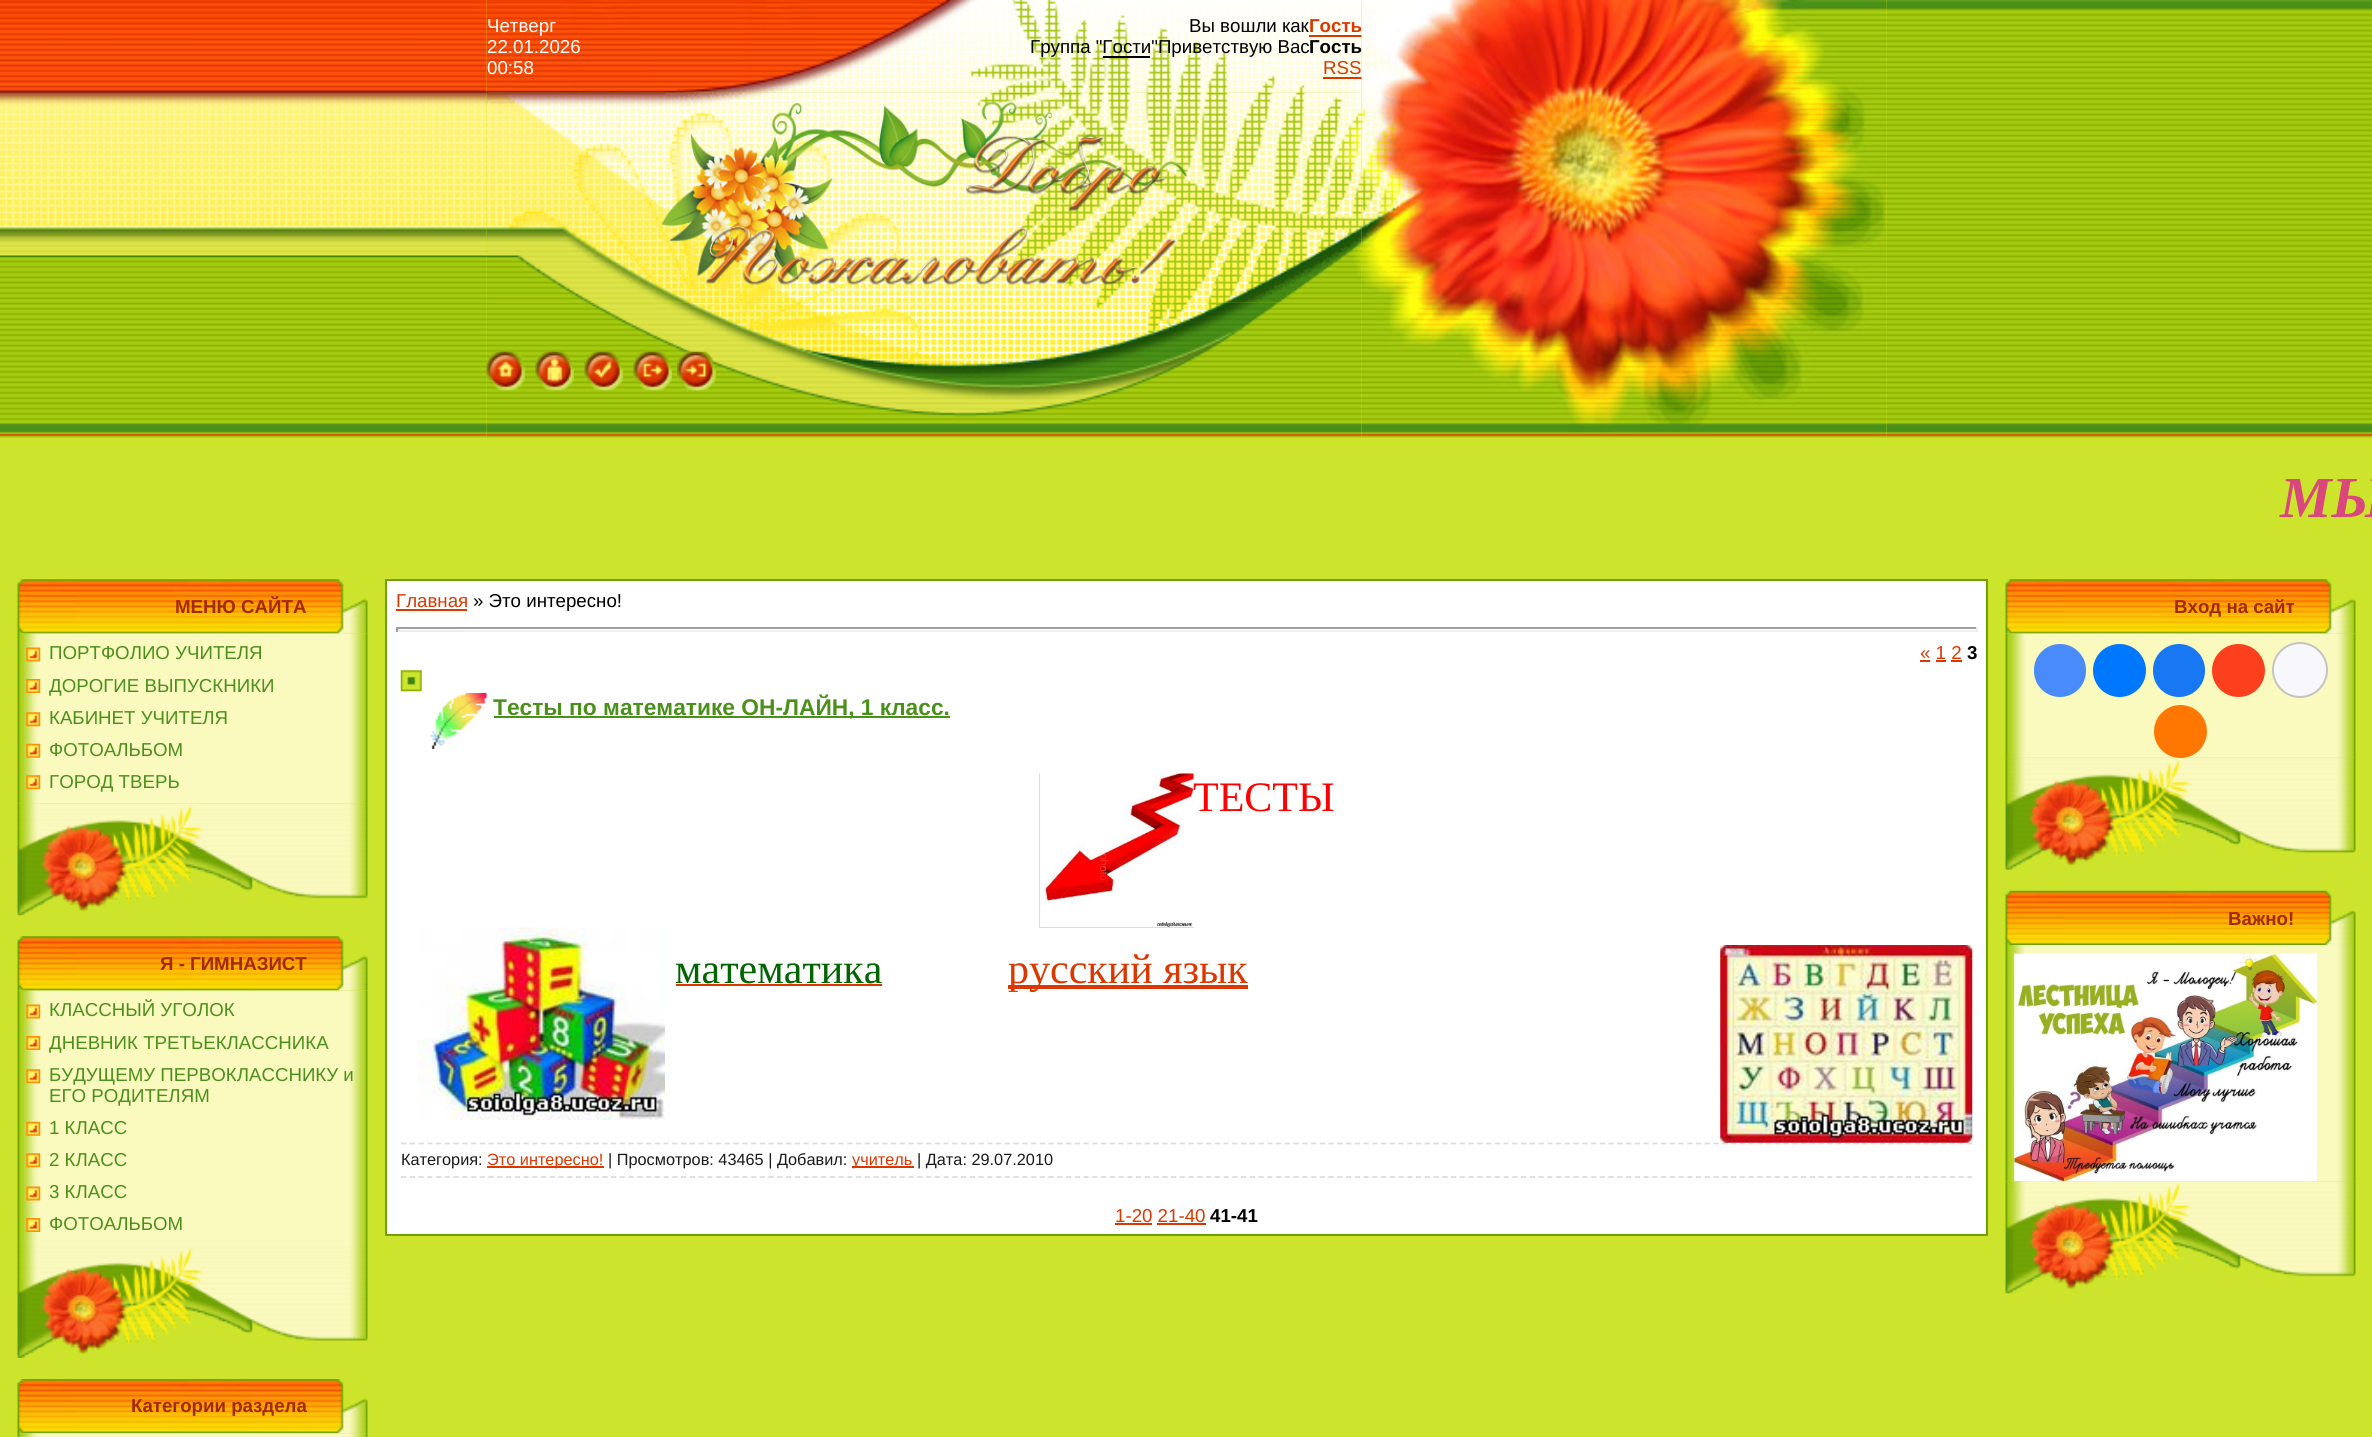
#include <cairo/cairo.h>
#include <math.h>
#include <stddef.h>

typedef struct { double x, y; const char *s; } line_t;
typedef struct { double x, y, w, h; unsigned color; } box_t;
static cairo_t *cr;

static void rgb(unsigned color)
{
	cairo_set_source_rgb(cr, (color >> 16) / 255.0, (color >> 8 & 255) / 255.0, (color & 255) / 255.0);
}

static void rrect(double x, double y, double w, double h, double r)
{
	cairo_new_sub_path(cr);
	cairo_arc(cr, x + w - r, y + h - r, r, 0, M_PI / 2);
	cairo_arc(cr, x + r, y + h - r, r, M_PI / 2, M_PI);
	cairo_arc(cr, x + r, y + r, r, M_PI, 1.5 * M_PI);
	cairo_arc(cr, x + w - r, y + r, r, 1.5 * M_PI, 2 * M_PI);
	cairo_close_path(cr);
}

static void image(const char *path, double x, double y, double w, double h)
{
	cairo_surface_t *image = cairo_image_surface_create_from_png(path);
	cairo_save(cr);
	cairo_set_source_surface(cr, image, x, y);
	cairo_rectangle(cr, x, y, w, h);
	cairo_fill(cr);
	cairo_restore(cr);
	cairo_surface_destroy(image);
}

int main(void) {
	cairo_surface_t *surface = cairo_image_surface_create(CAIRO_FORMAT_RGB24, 2372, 1437);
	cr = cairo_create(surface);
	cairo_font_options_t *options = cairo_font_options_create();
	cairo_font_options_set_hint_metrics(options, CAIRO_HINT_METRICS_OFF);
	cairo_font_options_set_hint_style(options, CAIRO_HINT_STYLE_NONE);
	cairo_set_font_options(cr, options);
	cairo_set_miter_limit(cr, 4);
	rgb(0xcce42c);
	cairo_paint(cr);
	image("img/1.png", 486, 0, 1401, 436);
	image("img/2.png", 0, 0, 487, 438);
	image("img/3.png", 486, 0, 876, 93);
	{
		static const box_t items[] = {
			{1309, 35, 53, 2, 0xdc3700},
			{1103, 56, 47, 2, 0x000000},
			{1323, 77, 39, 2, 0xdc3700},
		};
		for (size_t i = 0; i < sizeof items / sizeof *items; i++) {
			rgb(items[i].color);
			cairo_rectangle(cr, items[i].x, items[i].y, items[i].w, items[i].h);
			cairo_fill(cr);
		}
	}
	image("img/5.png", 1886, 0, 486, 438);
	image("img/6.png", 486, 92, 876, 211);
	image("img/8.png", 486, 302, 876, 136);
	image("img/4.png", 1361, 0, 526, 438);
	image("img/7.png", 661, 102, 526, 183);
	image("img/9.png", 486, 351, 39, 40);
	image("img/10.png", 535, 351, 39, 40);
	image("img/11.png", 584, 351, 39, 40);
	image("img/12.png", 633, 351, 39, 40);
	image("img/13.png", 677, 351, 39, 40);
	image("img/14.png", 17, 579, 351, 55);
	image("img/15.png", 17, 633, 351, 171);
	image("img/16.png", 26, 647, 15, 15);
	image("img/17.png", 26, 679, 15, 14);
	image("img/18.png", 26, 712, 15, 15);
	image("img/19.png", 26, 743, 15, 15);
	image("img/18.png", 26, 775, 15, 15);
	image("img/20.png", 17, 803, 351, 113);
	image("img/14.png", 17, 936, 351, 55);
	image("img/21.png", 17, 990, 351, 256);
	image("img/16.png", 26, 1004, 15, 15);
	image("img/17.png", 26, 1036, 15, 14);
	image("img/18.png", 26, 1069, 15, 15);
	image("img/19.png", 26, 1121, 15, 15);
	image("img/18.png", 26, 1153, 15, 15);
	image("img/16.png", 26, 1186, 15, 15);
	image("img/17.png", 26, 1218, 15, 14);
	image("img/22.png", 17, 1246, 351, 112);
	image("img/23.png", 17, 1379, 351, 55);
	image("img/24.png", 17, 1433, 351, 4);
	cairo_rectangle(cr, 386, 580, 1601, 655);
	rgb(0x6da104);
	cairo_stroke(cr);
	{
		static const box_t items[] = {
			{387, 581, 1599, 653, 0xffffff},
			{396, 609, 71, 2, 0xdc3700},
			{396, 627, 1582, 2, 0x9f9f9f},
			{1976, 627, 2, 5, 0xeeeeee},
			{396, 630, 1582, 2, 0xeeeeee},
			{396, 627, 2, 5, 0x9f9f9f},
			{1920, 660, 10, 2, 0xdc3700},
			{1936, 660, 10, 2, 0xdc3700},
			{1951, 660, 11, 2, 0xdc3700},
		};
		for (size_t i = 0; i < sizeof items / sizeof *items; i++) {
			rgb(items[i].color);
			cairo_rectangle(cr, items[i].x, items[i].y, items[i].w, items[i].h);
			cairo_fill(cr);
		}
	}
	image("img/25.png", 400, 670, 22, 22);
	image("img/26.png", 430, 693, 57, 56);
	rgb(0x4b901a);
	cairo_rectangle(cr, 494, 716, 456, 2);
	cairo_fill(cr);
	image("img/27.png", 1039, 773, 155, 155);
	image("img/28.png", 418, 927, 247, 193);
	rgb(0xdc3700);
	cairo_rectangle(cr, 676, 984, 206, 2);
	cairo_fill(cr);
	cairo_rectangle(cr, 1008, 985, 240, 4);
	cairo_fill(cr);
	cairo_new_path(cr);
	cairo_move_to(cr, 401, 1143.5);
	cairo_line_to(cr, 1972, 1143.5);
	rgb(0xdddddd);
	cairo_set_line_width(cr, 1.8);
	cairo_set_dash(cr, (double[]){5.25, 3.5}, 2, 0);
	cairo_stroke(cr);
	image("img/29.png", 1720, 945, 253, 198);
	cairo_new_path(cr);
	cairo_move_to(cr, 401, 1177);
	cairo_line_to(cr, 1972, 1177);
	cairo_stroke(cr);
	{
		static const box_t items[] = {
			{487, 1166, 117, 2, 0xdc3700},
			{852, 1166, 62, 2, 0xdc3700},
			{1115, 1223, 37, 2, 0xdc3700},
			{1157, 1223, 49, 2, 0xdc3700},
		};
		for (size_t i = 0; i < sizeof items / sizeof *items; i++) {
			rgb(items[i].color);
			cairo_rectangle(cr, items[i].x, items[i].y, items[i].w, items[i].h);
			cairo_fill(cr);
		}
	}
	image("img/14.png", 2005, 579, 351, 55);
	image("img/30.png", 2005, 633, 351, 125);
	rgb(0x498bfa);
	rrect(2034, 644, 52, 53, 26);
	cairo_fill(cr);
	rgb(0x0077ff);
	cairo_arc(cr, 2119.5, 670.5, 26.5, 0, 2 * M_PI);
	cairo_fill(cr);
	rgb(0x1877f2);
	rrect(2153, 644, 52, 53, 26);
	cairo_fill(cr);
	rgb(0xfc3f1d);
	cairo_arc(cr, 2238.5, 670.5, 26.5, 0, 2 * M_PI);
	cairo_fill(cr);
	rgb(0xf8f8fc);
	cairo_arc(cr, 2300, 670, 27, 0, 2 * M_PI);
	cairo_fill_preserve(cr);
	rgb(0xc4c4c4);
	cairo_set_line_width(cr, 2);
	cairo_set_dash(cr, NULL, 0, 0);
	cairo_stroke(cr);
	image("img/31.png", 2005, 757, 351, 113);
	rgb(0xff7700);
	cairo_arc(cr, 2180.5, 731.5, 26.5, 0, 2 * M_PI);
	cairo_fill(cr);
	image("img/32.png", 2005, 890, 351, 55);
	image("img/33.png", 2005, 945, 351, 237);
	image("img/34.png", 2014, 953, 303, 229);
	image("img/35.png", 2005, 1181, 351, 113);
	cairo_select_font_face(cr, "Liberation Sans", CAIRO_FONT_SLANT_NORMAL, CAIRO_FONT_WEIGHT_NORMAL);
	cairo_set_font_size(cr, 18.7);
	rgb(0xffffff);
	{
		static const line_t items[] = {
			{487, 32, "Четверг"},
			{487, 53, "22.01.2026"},
			{487, 74, "00:58"},
		};
		for (size_t i = 0; i < sizeof items / sizeof *items; i++) {
			cairo_move_to(cr, items[i].x, items[i].y);
			cairo_show_text(cr, items[i].s);
		}
	}
	rgb(0x000000);
	cairo_move_to(cr, 1189, 32);
	cairo_show_text(cr, "Вы вошли как");
	cairo_select_font_face(cr, "Liberation Sans", CAIRO_FONT_SLANT_NORMAL, CAIRO_FONT_WEIGHT_BOLD);
	rgb(0xdc3700);
	cairo_move_to(cr, 1309, 32);
	cairo_show_text(cr, "Гость");
	cairo_select_font_face(cr, "Liberation Sans", CAIRO_FONT_SLANT_NORMAL, CAIRO_FONT_WEIGHT_NORMAL);
	rgb(0x000000);
	cairo_move_to(cr, 1030, 53);
	cairo_show_text(cr, "Группа \"Гости\"Приветствую Вас");
	cairo_select_font_face(cr, "Liberation Sans", CAIRO_FONT_SLANT_NORMAL, CAIRO_FONT_WEIGHT_BOLD);
	cairo_move_to(cr, 1309, 53);
	cairo_show_text(cr, "Гость");
	cairo_select_font_face(cr, "Liberation Sans", CAIRO_FONT_SLANT_NORMAL, CAIRO_FONT_WEIGHT_NORMAL);
	rgb(0xdc3700);
	cairo_move_to(cr, 1323, 74);
	cairo_show_text(cr, "RSS");
	cairo_select_font_face(cr, "Liberation Serif", CAIRO_FONT_SLANT_ITALIC, CAIRO_FONT_WEIGHT_BOLD);
	cairo_set_font_size(cr, 58);
	rgb(0xd9477d);
	cairo_move_to(cr, 2280, 517);
	cairo_show_text(cr, "МЫ");
	cairo_select_font_face(cr, "Liberation Sans", CAIRO_FONT_SLANT_NORMAL, CAIRO_FONT_WEIGHT_BOLD);
	cairo_set_font_size(cr, 18.7);
	rgb(0xa42900);
	cairo_move_to(cr, 175, 613);
	cairo_show_text(cr, "МЕНЮ САЙТА");
	cairo_select_font_face(cr, "Liberation Sans", CAIRO_FONT_SLANT_NORMAL, CAIRO_FONT_WEIGHT_NORMAL);
	rgb(0x4b901a);
	{
		static const line_t items[] = {
			{49, 659, "ПОРТФОЛИО УЧИТЕЛЯ"},
			{49, 692, "ДОРОГИЕ ВЫПУСКНИКИ"},
			{49, 724, "КАБИНЕТ УЧИТЕЛЯ"},
			{49, 756, "ФОТОАЛЬБОМ"},
			{49, 788, "ГОРОД ТВЕРЬ"},
		};
		for (size_t i = 0; i < sizeof items / sizeof *items; i++) {
			cairo_move_to(cr, items[i].x, items[i].y);
			cairo_show_text(cr, items[i].s);
		}
	}
	cairo_select_font_face(cr, "Liberation Sans", CAIRO_FONT_SLANT_NORMAL, CAIRO_FONT_WEIGHT_BOLD);
	rgb(0xa42900);
	cairo_move_to(cr, 160, 970);
	cairo_show_text(cr, "Я - ГИМНАЗИСТ");
	cairo_select_font_face(cr, "Liberation Sans", CAIRO_FONT_SLANT_NORMAL, CAIRO_FONT_WEIGHT_NORMAL);
	rgb(0x4b901a);
	{
		static const line_t items[] = {
			{49, 1016, "КЛАССНЫЙ УГОЛОК"},
			{49, 1049, "ДНЕВНИК ТРЕТЬЕКЛАССНИКА"},
			{49, 1081, "БУДУЩЕМУ ПЕРВОКЛАССНИКУ и"},
			{49, 1102, "ЕГО РОДИТЕЛЯМ"},
			{49, 1134, "1 КЛАСС"},
			{49, 1166, "2 КЛАСС"},
			{49, 1198, "3 КЛАСС"},
			{49, 1230, "ФОТОАЛЬБОМ"},
		};
		for (size_t i = 0; i < sizeof items / sizeof *items; i++) {
			cairo_move_to(cr, items[i].x, items[i].y);
			cairo_show_text(cr, items[i].s);
		}
	}
	cairo_select_font_face(cr, "Liberation Sans", CAIRO_FONT_SLANT_NORMAL, CAIRO_FONT_WEIGHT_BOLD);
	rgb(0xa42900);
	cairo_move_to(cr, 131, 1412);
	cairo_show_text(cr, "Категории раздела");
	cairo_select_font_face(cr, "Liberation Sans", CAIRO_FONT_SLANT_NORMAL, CAIRO_FONT_WEIGHT_NORMAL);
	rgb(0xdc3700);
	cairo_move_to(cr, 396, 607);
	cairo_show_text(cr, "Главная");
	rgb(0x000000);
	cairo_move_to(cr, 473, 607);
	cairo_show_text(cr, "» Это интересно!");
	rgb(0xdc3700);
	cairo_move_to(cr, 1920, 659);
	cairo_show_text(cr, "« 1 2");
	cairo_select_font_face(cr, "Liberation Sans", CAIRO_FONT_SLANT_NORMAL, CAIRO_FONT_WEIGHT_BOLD);
	rgb(0x000000);
	cairo_move_to(cr, 1967, 659);
	cairo_show_text(cr, "3");
	cairo_set_font_size(cr, 22.75);
	rgb(0x4b901a);
	cairo_move_to(cr, 493, 715);
	cairo_show_text(cr, "Тесты по математике ОН-ЛАЙН, 1 класс.");
	cairo_select_font_face(cr, "Liberation Serif", CAIRO_FONT_SLANT_NORMAL, CAIRO_FONT_WEIGHT_NORMAL);
	cairo_set_font_size(cr, 42);
	rgb(0xff0000);
	cairo_move_to(cr, 1193, 811);
	cairo_show_text(cr, "ТЕСТЫ");
	rgb(0x006400);
	cairo_move_to(cr, 675, 983);
	cairo_show_text(cr, "математика");
	rgb(0xdc3700);
	cairo_move_to(cr, 1008, 983);
	cairo_show_text(cr, "русский язык");
	cairo_select_font_face(cr, "Liberation Sans", CAIRO_FONT_SLANT_NORMAL, CAIRO_FONT_WEIGHT_NORMAL);
	cairo_set_font_size(cr, 16.3);
	rgb(0x1a1a1a);
	cairo_move_to(cr, 401, 1165);
	cairo_show_text(cr, "Категория:");
	rgb(0xdc3700);
	cairo_move_to(cr, 487, 1165);
	cairo_show_text(cr, "Это интересно!");
	rgb(0x1a1a1a);
	cairo_move_to(cr, 608, 1165);
	cairo_show_text(cr, "| Просмотров: 43465 | Добавил:");
	rgb(0xdc3700);
	cairo_move_to(cr, 852, 1165);
	cairo_show_text(cr, "учитель");
	rgb(0x1a1a1a);
	cairo_move_to(cr, 917, 1165);
	cairo_show_text(cr, "| Дата: 29.07.2010");
	cairo_set_font_size(cr, 18.7);
	rgb(0xdc3700);
	cairo_move_to(cr, 1115, 1222);
	cairo_show_text(cr, "1-20 21-40");
	cairo_select_font_face(cr, "Liberation Sans", CAIRO_FONT_SLANT_NORMAL, CAIRO_FONT_WEIGHT_BOLD);
	rgb(0x000000);
	cairo_move_to(cr, 1210, 1222);
	cairo_show_text(cr, "41-41");
	rgb(0xa42900);
	cairo_move_to(cr, 2174, 613);
	cairo_show_text(cr, "Вход на сайт");
	cairo_move_to(cr, 2228, 925);
	cairo_show_text(cr, "Важно!");
	cairo_surface_write_to_png(surface, "page.png");
	cairo_font_options_destroy(options);
	cairo_destroy(cr);
	cairo_surface_destroy(surface);
	return 0;
}
